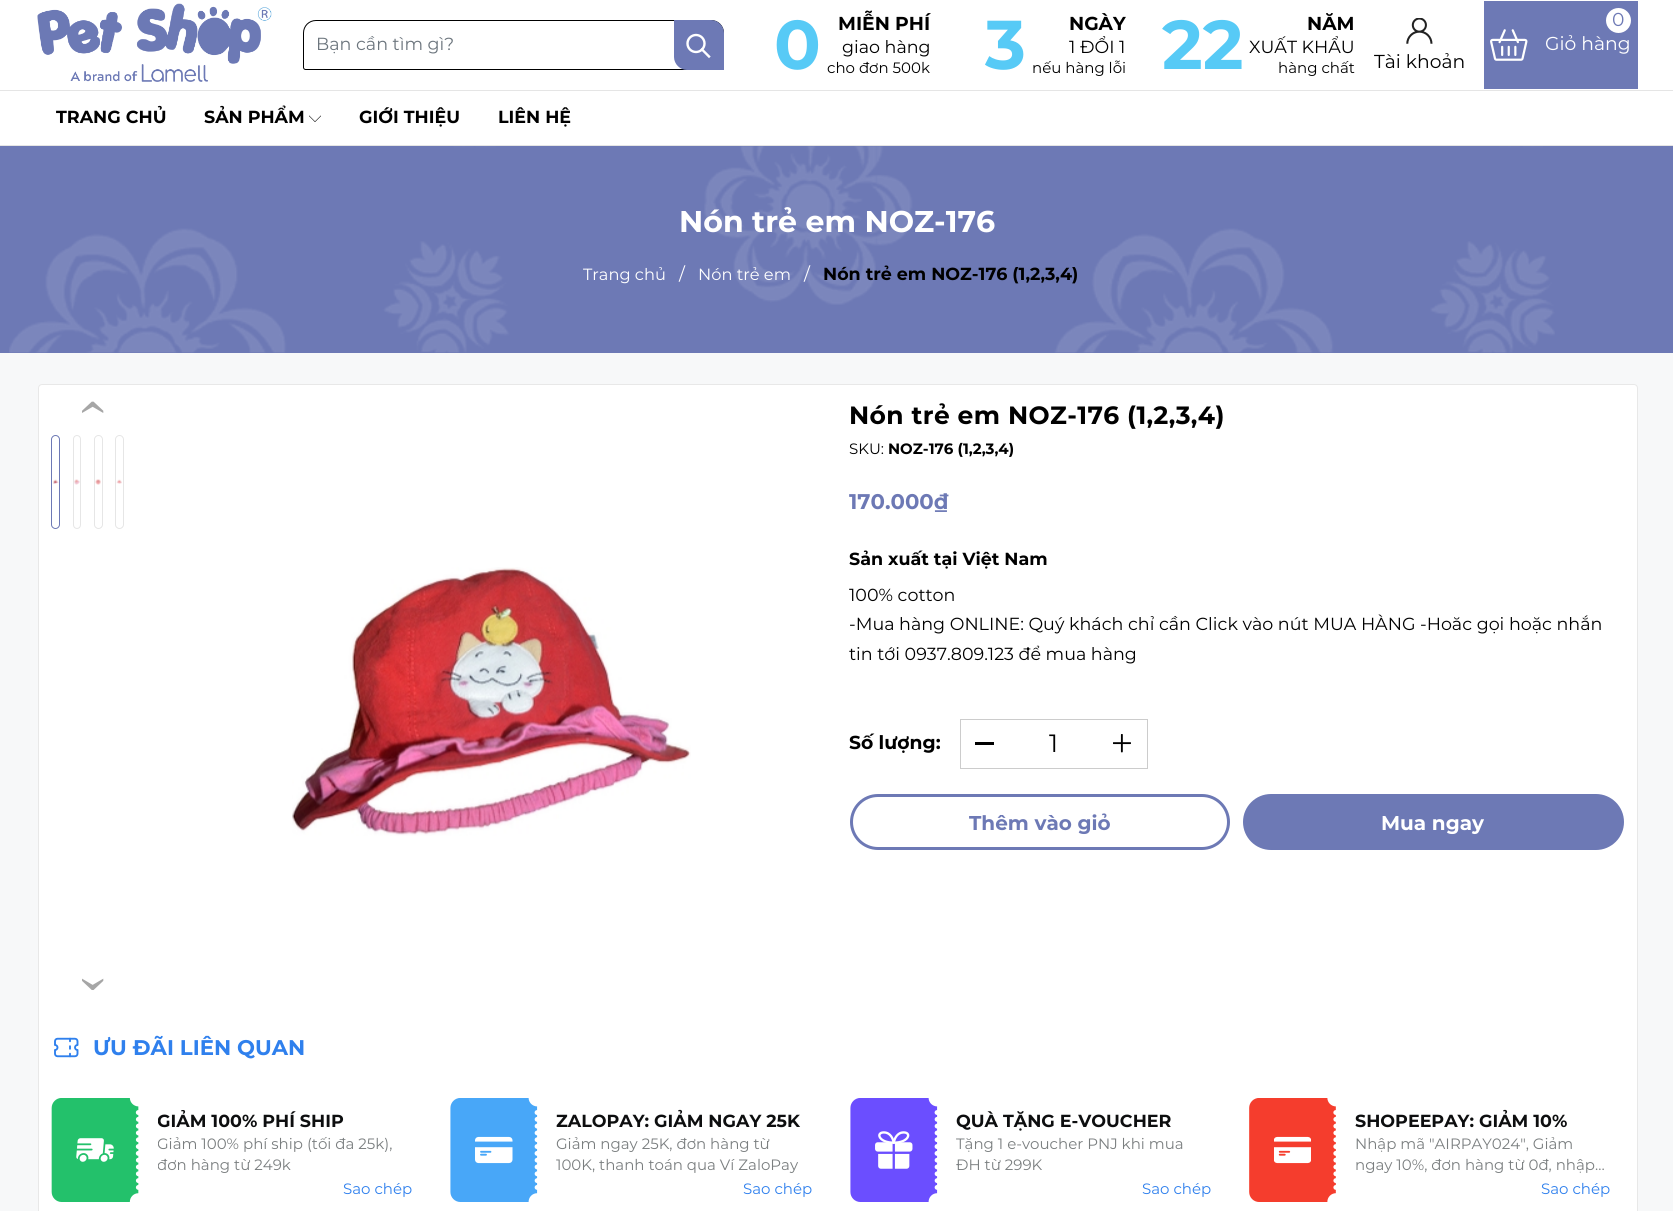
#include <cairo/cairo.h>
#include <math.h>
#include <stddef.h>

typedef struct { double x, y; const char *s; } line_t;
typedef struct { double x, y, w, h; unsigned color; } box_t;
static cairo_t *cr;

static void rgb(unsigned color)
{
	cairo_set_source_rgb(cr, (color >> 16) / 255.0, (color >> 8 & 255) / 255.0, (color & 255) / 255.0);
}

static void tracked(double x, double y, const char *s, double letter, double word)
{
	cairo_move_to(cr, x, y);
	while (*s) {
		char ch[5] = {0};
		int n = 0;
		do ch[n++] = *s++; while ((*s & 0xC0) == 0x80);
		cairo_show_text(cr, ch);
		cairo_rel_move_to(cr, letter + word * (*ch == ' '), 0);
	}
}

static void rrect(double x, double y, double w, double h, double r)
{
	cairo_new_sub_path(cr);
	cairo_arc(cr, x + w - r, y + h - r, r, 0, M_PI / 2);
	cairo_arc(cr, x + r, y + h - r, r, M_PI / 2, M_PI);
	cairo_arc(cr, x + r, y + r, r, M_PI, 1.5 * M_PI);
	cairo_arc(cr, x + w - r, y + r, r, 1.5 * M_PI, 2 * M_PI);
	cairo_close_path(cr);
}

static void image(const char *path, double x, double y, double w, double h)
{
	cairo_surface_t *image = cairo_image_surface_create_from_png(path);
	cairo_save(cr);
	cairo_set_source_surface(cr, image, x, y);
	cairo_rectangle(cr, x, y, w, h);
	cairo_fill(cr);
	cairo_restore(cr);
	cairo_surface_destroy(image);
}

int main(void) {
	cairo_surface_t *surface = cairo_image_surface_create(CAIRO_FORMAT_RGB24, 1673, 1211);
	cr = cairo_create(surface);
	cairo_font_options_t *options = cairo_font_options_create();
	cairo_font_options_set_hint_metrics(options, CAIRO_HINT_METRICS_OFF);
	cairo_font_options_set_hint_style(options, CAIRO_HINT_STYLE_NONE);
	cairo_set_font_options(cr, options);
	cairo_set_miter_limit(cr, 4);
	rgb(0xf7f8f9);
	cairo_paint(cr);
	rgb(0xffffff);
	cairo_rectangle(cr, 0, 0, 1673, 90);
	cairo_fill(cr);
	image("img/1.png", 37, 3, 235, 79);
	cairo_new_path(cr);
	cairo_move_to(cr, 316, 20.5);
	cairo_line_to(cr, 711, 20.5);
	cairo_curve_to(cr, 718, 20.5, 723.5, 26, 723.5, 33);
	cairo_line_to(cr, 723.5, 67.5);
	cairo_curve_to(cr, 723.5, 68.5, 722.5, 69.5, 721.5, 69.5);
	cairo_line_to(cr, 305.5, 69.5);
	cairo_curve_to(cr, 304.5, 69.5, 303.5, 68.5, 303.5, 67.5);
	cairo_line_to(cr, 303.5, 33);
	cairo_curve_to(cr, 303.5, 26, 309, 20.5, 316, 20.5);
	cairo_close_path(cr);
	rgb(0x000000);
	cairo_set_line_width(cr, 1);
	cairo_stroke(cr);
	rgb(0x6d79b5);
	cairo_new_path(cr);
	cairo_move_to(cr, 674, 20);
	cairo_line_to(cr, 711, 20);
	cairo_curve_to(cr, 718, 20, 724, 26, 724, 33);
	cairo_line_to(cr, 724, 70);
	cairo_line_to(cr, 687, 70);
	cairo_curve_to(cr, 680, 70, 674, 64, 674, 57);
	cairo_close_path(cr);
	cairo_fill(cr);
	cairo_new_path(cr);
	cairo_move_to(cr, 709, 56.5);
	cairo_line_to(cr, 702, 49.5);
	rgb(0xffffff);
	cairo_set_line_width(cr, 2.4);
	cairo_set_line_cap(cr, CAIRO_LINE_CAP_SQUARE);
	cairo_stroke(cr);
	cairo_arc(cr, 696, 43.5, 8.5, 0, 2 * M_PI);
	cairo_set_line_cap(cr, CAIRO_LINE_CAP_BUTT);
	cairo_stroke(cr);
	rgb(0x6d79b5);
	cairo_rectangle(cr, 1484, 1, 154, 88);
	cairo_fill(cr);
	rgb(0xffffff);
	cairo_arc(cr, 1618.5, 20.5, 12.5, 0, 2 * M_PI);
	cairo_fill(cr);
	image("img/2.png", 1490, 29, 38, 32);
	image("img/3.png", 1406, 18, 27, 26);
	{
		static const box_t items[] = {
			{0, 91, 1673, 54, 0xffffff},
			{0, 90, 1673, 1, 0xe5e5e5},
			{0, 145, 1673, 1, 0xe5e5e5},
		};
		for (size_t i = 0; i < sizeof items / sizeof *items; i++) {
			rgb(items[i].color);
			cairo_rectangle(cr, items[i].x, items[i].y, items[i].w, items[i].h);
			cairo_fill(cr);
		}
	}
	image("img/4.png", 309, 115, 12, 7);
	rgb(0x6d79b5);
	cairo_rectangle(cr, 0, 146, 1673, 207);
	cairo_fill(cr);
	image("img/5.png", 9, 146, 1546, 207);
	rgb(0xffffff);
	rrect(38.5, 384.5, 1599, 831, 3.5);
	cairo_fill_preserve(cr);
	rgb(0xe8e8e8);
	cairo_set_line_width(cr, 1);
	cairo_stroke(cr);
	rrect(51.5, 435.5, 8, 93, 4);
	rgb(0x6d79b5);
	cairo_stroke(cr);
	image("img/6.png", 53, 479, 6, 5);
	rrect(73.5, 435.5, 7, 93, 3.5);
	rgb(0xe6e6e6);
	cairo_stroke(cr);
	image("img/7.png", 74, 479, 6, 6);
	rrect(94.5, 435.5, 8, 93, 4);
	cairo_stroke(cr);
	image("img/8.png", 95, 479, 6, 6);
	rrect(115.5, 435.5, 8, 93, 4);
	cairo_stroke(cr);
	image("img/9.png", 116, 479, 6, 5);
	image("img/10.png", 292, 567, 399, 269);
	cairo_rectangle(cr, 960.5, 719.5, 187, 49);
	rgb(0xcccccc);
	cairo_stroke(cr);
	rgb(0x000000);
	cairo_rectangle(cr, 975, 742, 19, 3);
	cairo_fill(cr);
	image("img/11.png", 1113, 734, 18, 19);
	rrect(851.5, 795.5, 377, 53, 26.5);
	rgb(0x6d79b5);
	cairo_set_line_width(cr, 3);
	cairo_stroke(cr);
	rrect(1244.5, 795.5, 378, 53, 26.5);
	cairo_fill_preserve(cr);
	cairo_stroke(cr);
	image("img/12.png", 54, 1037, 25, 21);
	image("img/13.png", 51, 1098, 88, 104);
	image("img/14.png", 76, 1138, 38, 24);
	image("img/15.png", 450, 1098, 88, 104);
	image("img/16.png", 475, 1136, 38, 28);
	image("img/17.png", 850, 1098, 88, 104);
	image("img/18.png", 875, 1131, 38, 38);
	image("img/19.png", 1249, 1098, 87, 104);
	image("img/20.png", 1274, 1136, 37, 28);
	cairo_select_font_face(cr, "Montserrat", CAIRO_FONT_SLANT_NORMAL, CAIRO_FONT_WEIGHT_NORMAL);
	cairo_set_font_size(cr, 17.5);
	rgb(0x6c757d);
	cairo_move_to(cr, 316, 50);
	cairo_show_text(cr, "Bạn cần tìm gì?");
	cairo_select_font_face(cr, "Montserrat", CAIRO_FONT_SLANT_NORMAL, CAIRO_FONT_WEIGHT_BOLD);
	cairo_set_font_size(cr, 69);
	rgb(0x57caf6);
	cairo_move_to(cr, 774, 69);
	cairo_show_text(cr, "0");
	cairo_set_font_size(cr, 18.75);
	rgb(0x000000);
	cairo_move_to(cr, 838, 30);
	cairo_show_text(cr, "MIỄN PHÍ");
	cairo_select_font_face(cr, "Montserrat", CAIRO_FONT_SLANT_NORMAL, CAIRO_FONT_WEIGHT_NORMAL);
	cairo_set_font_size(cr, 17.5);
	cairo_move_to(cr, 842, 53);
	cairo_show_text(cr, "giao hàng");
	cairo_set_font_size(cr, 15);
	cairo_move_to(cr, 827, 73);
	cairo_show_text(cr, "cho đơn 500k");
	cairo_select_font_face(cr, "Montserrat", CAIRO_FONT_SLANT_NORMAL, CAIRO_FONT_WEIGHT_BOLD);
	cairo_set_font_size(cr, 69);
	rgb(0x57caf6);
	cairo_move_to(cr, 985, 69);
	cairo_show_text(cr, "3");
	cairo_set_font_size(cr, 18.75);
	rgb(0x000000);
	cairo_move_to(cr, 1069, 30);
	cairo_show_text(cr, "NGÀY");
	cairo_select_font_face(cr, "Montserrat", CAIRO_FONT_SLANT_NORMAL, CAIRO_FONT_WEIGHT_NORMAL);
	cairo_set_font_size(cr, 17.5);
	cairo_move_to(cr, 1069, 53);
	cairo_show_text(cr, "1 ĐỔI 1");
	cairo_set_font_size(cr, 15);
	cairo_move_to(cr, 1032, 73);
	cairo_show_text(cr, "nếu hàng lỗi");
	cairo_select_font_face(cr, "Montserrat", CAIRO_FONT_SLANT_NORMAL, CAIRO_FONT_WEIGHT_BOLD);
	cairo_set_font_size(cr, 69);
	rgb(0x57caf6);
	cairo_move_to(cr, 1162, 69);
	cairo_show_text(cr, "22");
	cairo_set_font_size(cr, 18.75);
	rgb(0x000000);
	cairo_move_to(cr, 1307, 30);
	cairo_show_text(cr, "NĂM");
	cairo_select_font_face(cr, "Montserrat", CAIRO_FONT_SLANT_NORMAL, CAIRO_FONT_WEIGHT_NORMAL);
	cairo_set_font_size(cr, 17.5);
	cairo_move_to(cr, 1249, 53);
	cairo_show_text(cr, "XUẤT KHẨU");
	cairo_set_font_size(cr, 15);
	cairo_move_to(cr, 1278, 73);
	cairo_show_text(cr, "hàng chất");
	cairo_set_font_size(cr, 18.75);
	rgb(0x6d79b5);
	cairo_move_to(cr, 1612, 26);
	cairo_show_text(cr, "0");
	rgb(0xffffff);
	cairo_move_to(cr, 1545, 50);
	cairo_show_text(cr, "Giỏ hàng");
	rgb(0x000000);
	cairo_move_to(cr, 1374, 68);
	cairo_show_text(cr, "Tài khoản");
	cairo_select_font_face(cr, "Montserrat", CAIRO_FONT_SLANT_NORMAL, CAIRO_FONT_WEIGHT_BOLD);
	cairo_set_font_size(cr, 17.5);
	{
		static const line_t items[] = {
			{56, 123, "TRANG CHỦ"},
			{204, 123, "SẢN PHẨM"},
			{359, 123, "GIỚI THIỆU"},
			{498, 123, "LIÊN HỆ"},
		};
		for (size_t i = 0; i < sizeof items / sizeof *items; i++) {
			cairo_move_to(cr, items[i].x, items[i].y);
			cairo_show_text(cr, items[i].s);
		}
	}
	cairo_set_font_size(cr, 30);
	rgb(0xffffff);
	cairo_move_to(cr, 679, 232);
	cairo_show_text(cr, "Nón trẻ em NOZ-176");
	cairo_select_font_face(cr, "Montserrat", CAIRO_FONT_SLANT_NORMAL, CAIRO_FONT_WEIGHT_NORMAL);
	cairo_set_font_size(cr, 16.25);
	cairo_move_to(cr, 583, 280);
	cairo_show_text(cr, "Trang chủ");
	cairo_set_font_size(cr, 17.5);
	cairo_move_to(cr, 679, 280);
	cairo_show_text(cr, "/");
	cairo_set_font_size(cr, 16.25);
	cairo_move_to(cr, 698, 280);
	cairo_show_text(cr, "Nón trẻ em");
	cairo_set_font_size(cr, 17.5);
	cairo_move_to(cr, 804, 280);
	cairo_show_text(cr, "/");
	cairo_select_font_face(cr, "Montserrat", CAIRO_FONT_SLANT_NORMAL, CAIRO_FONT_WEIGHT_BOLD);
	rgb(0x000000);
	cairo_move_to(cr, 823, 280);
	cairo_show_text(cr, "Nón trẻ em NOZ-176 (1,2,3,4)");
	cairo_select_font_face(cr, "Liberation Serif", CAIRO_FONT_SLANT_NORMAL, CAIRO_FONT_WEIGHT_NORMAL);
	cairo_set_font_size(cr, 56);
	rgb(0xa6a6a6);
	cairo_save(cr);
	cairo_translate(cr, 80, 398);
	cairo_rotate(cr, 90 * M_PI / 180);
	cairo_move_to(cr, 0, 0);
	cairo_show_text(cr, "‹");
	cairo_restore(cr);
	cairo_save(cr);
	cairo_translate(cr, 80, 975);
	cairo_rotate(cr, 90 * M_PI / 180);
	cairo_move_to(cr, 0, 0);
	cairo_show_text(cr, "›");
	cairo_restore(cr);
	cairo_select_font_face(cr, "Montserrat", CAIRO_FONT_SLANT_NORMAL, CAIRO_FONT_WEIGHT_BOLD);
	cairo_set_font_size(cr, 25);
	rgb(0x000000);
	tracked(849, 424, "Nón trẻ em NOZ-176 (1,2,3,4)", 0.4, 0);
	cairo_select_font_face(cr, "Montserrat", CAIRO_FONT_SLANT_NORMAL, CAIRO_FONT_WEIGHT_NORMAL);
	cairo_set_font_size(cr, 15);
	cairo_move_to(cr, 849, 454);
	cairo_show_text(cr, "SKU:");
	cairo_select_font_face(cr, "Montserrat", CAIRO_FONT_SLANT_NORMAL, CAIRO_FONT_WEIGHT_BOLD);
	cairo_move_to(cr, 888, 454);
	cairo_show_text(cr, "NOZ-176 (1,2,3,4)");
	cairo_set_font_size(cr, 21.25);
	rgb(0x6d79b5);
	cairo_move_to(cr, 849, 509);
	cairo_show_text(cr, "170.000₫");
	cairo_set_font_size(cr, 17.5);
	rgb(0x000000);
	cairo_move_to(cr, 849, 565);
	cairo_show_text(cr, "Sản xuất tại Việt Nam");
	cairo_select_font_face(cr, "Montserrat", CAIRO_FONT_SLANT_NORMAL, CAIRO_FONT_WEIGHT_NORMAL);
	{
		static const line_t items[] = {
			{849, 601, "100% cotton"},
			{849, 630, "-Mua hàng ONLINE: Quý khách chỉ cần Click vào nút MUA HÀNG -Hoăc gọi hoặc nhắn"},
			{849, 660, "tin tới 0937.809.123 để mua hàng"},
		};
		for (size_t i = 0; i < sizeof items / sizeof *items; i++) {
			cairo_move_to(cr, items[i].x, items[i].y);
			cairo_show_text(cr, items[i].s);
		}
	}
	cairo_select_font_face(cr, "Montserrat", CAIRO_FONT_SLANT_NORMAL, CAIRO_FONT_WEIGHT_BOLD);
	cairo_set_font_size(cr, 18.75);
	cairo_move_to(cr, 849, 749);
	cairo_show_text(cr, "Số lượng:");
	cairo_select_font_face(cr, "Montserrat", CAIRO_FONT_SLANT_NORMAL, CAIRO_FONT_WEIGHT_NORMAL);
	cairo_set_font_size(cr, 25);
	cairo_move_to(cr, 1049, 752);
	cairo_show_text(cr, "1");
	cairo_select_font_face(cr, "Montserrat", CAIRO_FONT_SLANT_NORMAL, CAIRO_FONT_WEIGHT_BOLD);
	cairo_set_font_size(cr, 20);
	rgb(0x6d79b5);
	cairo_move_to(cr, 969, 830);
	cairo_show_text(cr, "Thêm vào giỏ");
	rgb(0xffffff);
	cairo_move_to(cr, 1381, 830);
	cairo_show_text(cr, "Mua ngay");
	cairo_set_font_size(cr, 21.25);
	rgb(0x2f80ed);
	cairo_move_to(cr, 93, 1055);
	cairo_show_text(cr, "ƯU ĐÃI LIÊN QUAN");
	cairo_save(cr);
	cairo_rectangle(cr, 158, 1110, 255, 24);
	cairo_clip(cr);
	cairo_set_font_size(cr, 17.5);
	rgb(0x0d0e0f);
	cairo_move_to(cr, 157, 1127);
	cairo_show_text(cr, "GIẢM 100% PHÍ SHIP");
	cairo_restore(cr);
	cairo_save(cr);
	cairo_rectangle(cr, 158, 1134, 255, 42);
	cairo_clip(cr);
	cairo_select_font_face(cr, "Montserrat", CAIRO_FONT_SLANT_NORMAL, CAIRO_FONT_WEIGHT_NORMAL);
	cairo_set_font_size(cr, 15);
	rgb(0x7a7e7f);
	cairo_move_to(cr, 157, 1149);
	cairo_show_text(cr, "Giảm 100% phí ship (tối đa 25k),");
	cairo_move_to(cr, 157, 1170);
	cairo_show_text(cr, "đơn hàng từ 249k");
	cairo_restore(cr);
	cairo_select_font_face(cr, "Montserrat", CAIRO_FONT_SLANT_NORMAL, CAIRO_FONT_WEIGHT_NORMAL);
	cairo_set_font_size(cr, 15);
	cairo_move_to(cr, 343, 1194);
	cairo_show_text(cr, "Sao chép");
	cairo_select_font_face(cr, "Montserrat", CAIRO_FONT_SLANT_NORMAL, CAIRO_FONT_WEIGHT_BOLD);
	cairo_set_font_size(cr, 17.5);
	rgb(0x0d0e0f);
	cairo_move_to(cr, 556, 1127);
	cairo_show_text(cr, "ZALOPAY: GIẢM NGAY 25K");
	cairo_select_font_face(cr, "Montserrat", CAIRO_FONT_SLANT_NORMAL, CAIRO_FONT_WEIGHT_NORMAL);
	cairo_set_font_size(cr, 15);
	rgb(0x7a7e7f);
	cairo_move_to(cr, 556, 1149);
	cairo_show_text(cr, "Giảm ngay 25K, đơn hàng từ");
	cairo_move_to(cr, 556, 1170);
	cairo_show_text(cr, "100K, thanh toán qua Ví ZaloPay");
	rgb(0x2f80ed);
	cairo_move_to(cr, 743, 1194);
	cairo_show_text(cr, "Sao chép");
	cairo_select_font_face(cr, "Montserrat", CAIRO_FONT_SLANT_NORMAL, CAIRO_FONT_WEIGHT_BOLD);
	cairo_set_font_size(cr, 17.5);
	rgb(0x0d0e0f);
	cairo_move_to(cr, 956, 1127);
	cairo_show_text(cr, "QUÀ TẶNG E-VOUCHER");
	cairo_select_font_face(cr, "Montserrat", CAIRO_FONT_SLANT_NORMAL, CAIRO_FONT_WEIGHT_NORMAL);
	cairo_set_font_size(cr, 15);
	rgb(0x7a7e7f);
	cairo_move_to(cr, 956, 1149);
	cairo_show_text(cr, "Tặng 1 e-voucher PNJ khi mua");
	cairo_move_to(cr, 956, 1170);
	cairo_show_text(cr, "ĐH từ 299K");
	rgb(0x2f80ed);
	cairo_move_to(cr, 1142, 1194);
	cairo_show_text(cr, "Sao chép");
	cairo_select_font_face(cr, "Montserrat", CAIRO_FONT_SLANT_NORMAL, CAIRO_FONT_WEIGHT_BOLD);
	cairo_set_font_size(cr, 17.5);
	rgb(0x0d0e0f);
	cairo_move_to(cr, 1355, 1127);
	cairo_show_text(cr, "SHOPEEPAY: GIẢM 10%");
	cairo_select_font_face(cr, "Montserrat", CAIRO_FONT_SLANT_NORMAL, CAIRO_FONT_WEIGHT_NORMAL);
	cairo_set_font_size(cr, 15);
	rgb(0x7a7e7f);
	cairo_move_to(cr, 1355, 1149);
	cairo_show_text(cr, "Nhập mã \"AIRPAY024\", Giảm");
	cairo_move_to(cr, 1355, 1170);
	cairo_show_text(cr, "ngay 10%, đơn hàng từ 0đ, nhập…");
	rgb(0x2f80ed);
	cairo_move_to(cr, 1541, 1194);
	cairo_show_text(cr, "Sao chép");
	cairo_surface_write_to_png(surface, "page.png");
	cairo_font_options_destroy(options);
	cairo_destroy(cr);
	cairo_surface_destroy(surface);
	return 0;
}
